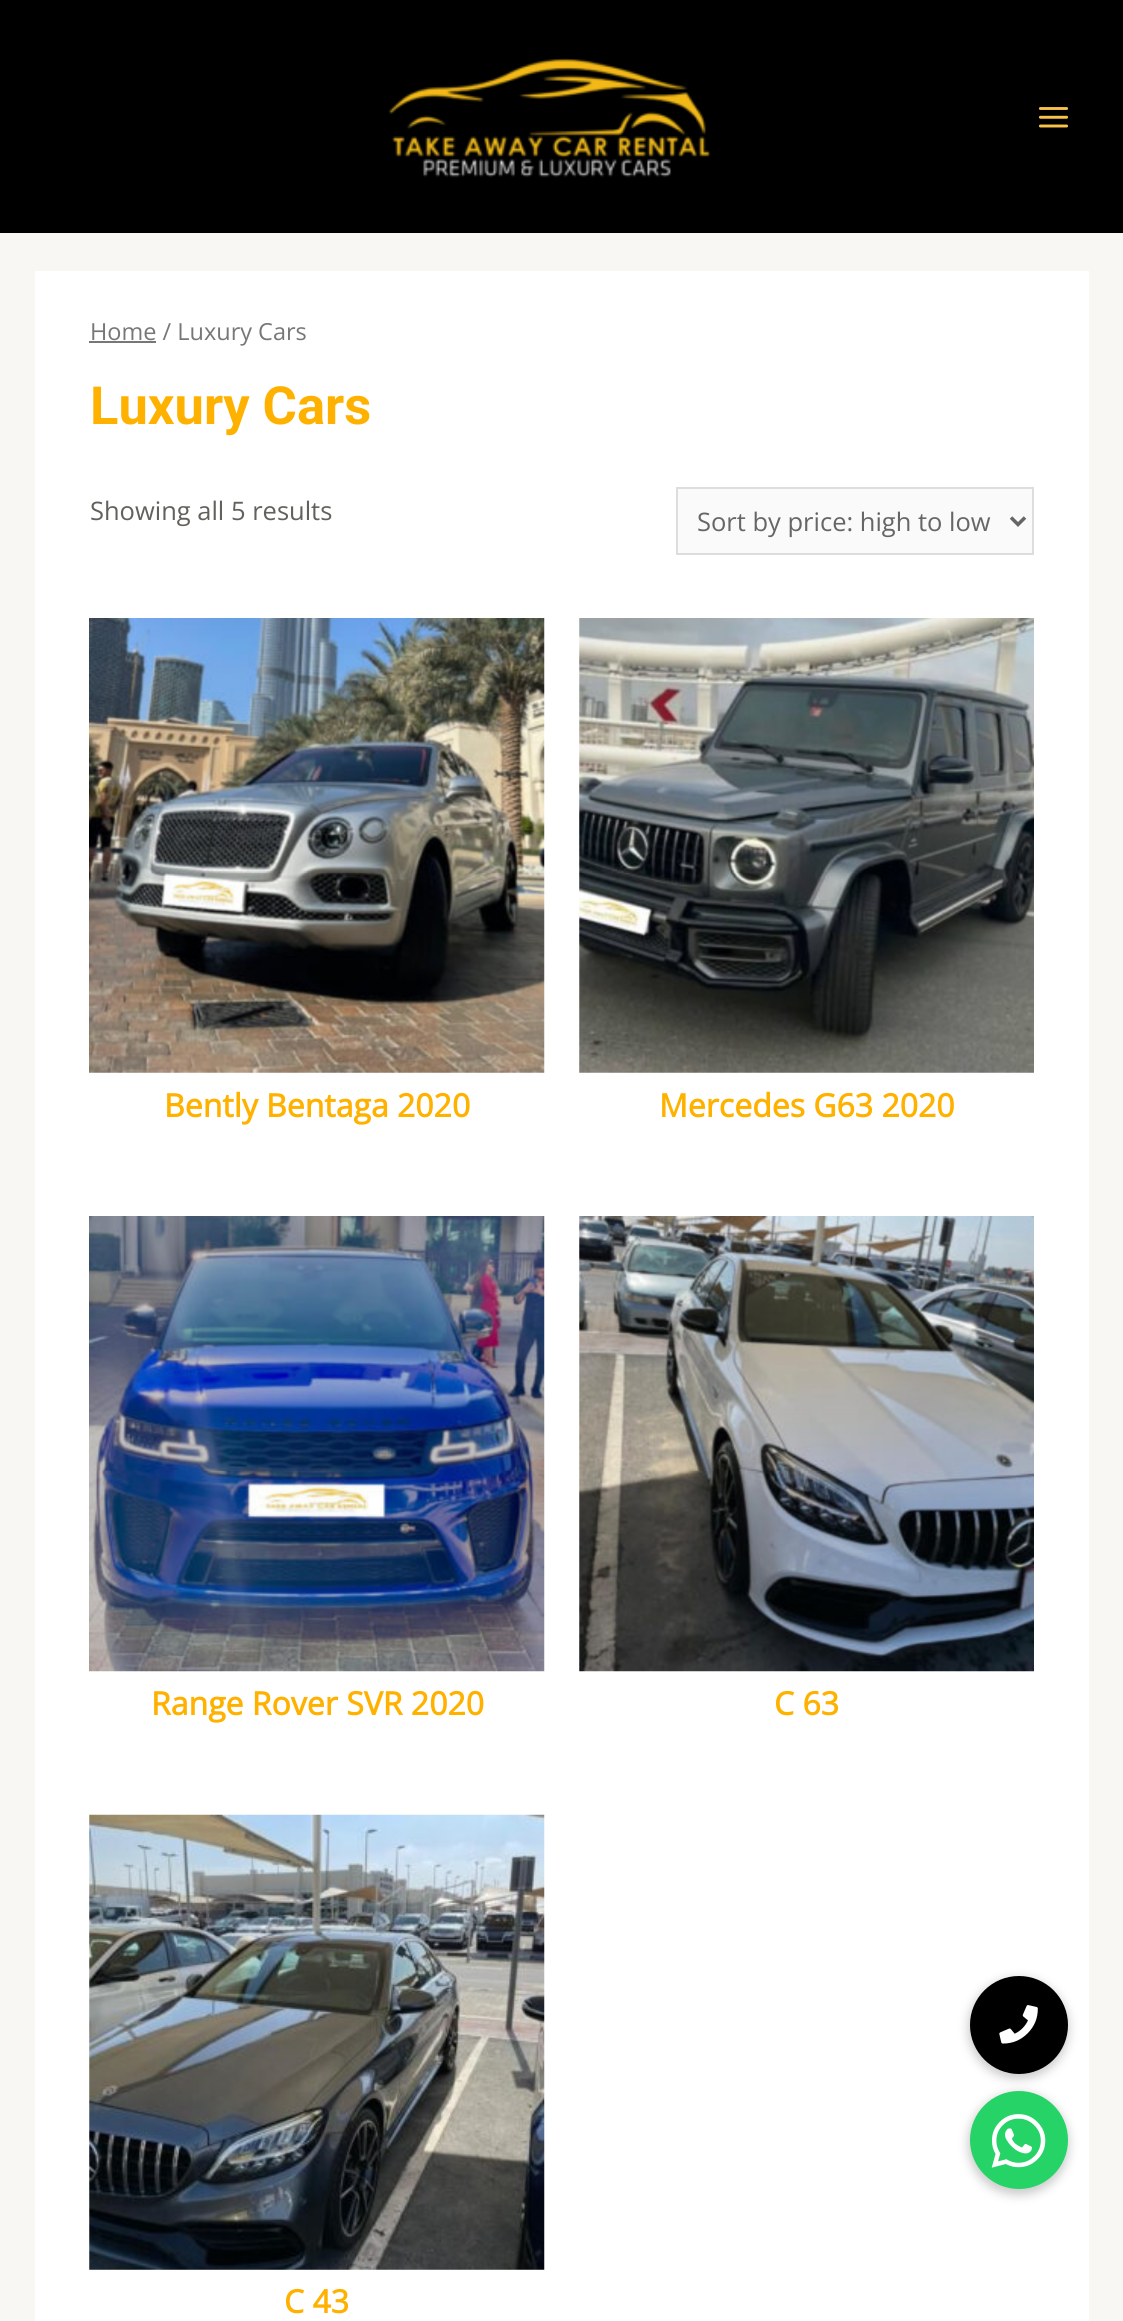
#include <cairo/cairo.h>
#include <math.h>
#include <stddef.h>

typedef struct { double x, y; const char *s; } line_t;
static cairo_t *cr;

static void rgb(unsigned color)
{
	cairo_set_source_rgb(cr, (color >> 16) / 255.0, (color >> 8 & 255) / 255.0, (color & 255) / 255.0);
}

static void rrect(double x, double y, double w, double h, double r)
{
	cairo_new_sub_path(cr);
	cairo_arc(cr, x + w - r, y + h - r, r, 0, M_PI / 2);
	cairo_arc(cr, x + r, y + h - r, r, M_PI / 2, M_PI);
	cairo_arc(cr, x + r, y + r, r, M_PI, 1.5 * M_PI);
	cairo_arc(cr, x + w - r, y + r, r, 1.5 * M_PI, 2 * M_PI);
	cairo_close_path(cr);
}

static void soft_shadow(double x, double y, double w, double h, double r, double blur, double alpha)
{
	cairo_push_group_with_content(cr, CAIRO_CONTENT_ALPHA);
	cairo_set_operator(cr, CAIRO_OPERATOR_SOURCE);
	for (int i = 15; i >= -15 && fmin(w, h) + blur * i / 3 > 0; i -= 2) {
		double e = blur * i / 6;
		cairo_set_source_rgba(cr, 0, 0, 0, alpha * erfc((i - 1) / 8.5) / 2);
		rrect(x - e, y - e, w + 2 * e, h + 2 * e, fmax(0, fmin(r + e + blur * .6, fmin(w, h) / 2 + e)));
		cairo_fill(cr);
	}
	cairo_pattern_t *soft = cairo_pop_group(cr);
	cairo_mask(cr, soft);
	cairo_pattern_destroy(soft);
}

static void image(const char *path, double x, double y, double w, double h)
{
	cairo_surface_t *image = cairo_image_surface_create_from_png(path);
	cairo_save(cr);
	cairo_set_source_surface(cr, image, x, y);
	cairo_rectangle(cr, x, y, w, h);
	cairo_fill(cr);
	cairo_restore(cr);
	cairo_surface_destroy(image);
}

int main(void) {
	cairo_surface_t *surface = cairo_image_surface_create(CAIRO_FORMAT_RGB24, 1123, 2321);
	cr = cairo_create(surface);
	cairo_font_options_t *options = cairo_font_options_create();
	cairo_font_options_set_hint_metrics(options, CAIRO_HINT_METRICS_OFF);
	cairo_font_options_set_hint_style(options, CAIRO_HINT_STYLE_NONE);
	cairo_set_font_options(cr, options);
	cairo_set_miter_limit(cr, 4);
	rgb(0xf8f7f3);
	cairo_paint(cr);
	rgb(0x000000);
	cairo_rectangle(cr, 0, 0, 1123, 233);
	cairo_fill(cr);
	image("img/1.png", 388, 58, 323, 120);
	image("img/2.png", 1038, 107, 31, 21);
	rgb(0xffffff);
	cairo_rectangle(cr, 35, 271, 1054, 2050);
	cairo_fill(cr);
	rgb(0x777777);
	cairo_rectangle(cr, 89, 341, 67, 2);
	cairo_fill(cr);
	rgb(0xfafafa);
	cairo_rectangle(cr, 677, 488, 356, 66);
	cairo_fill_preserve(cr);
	rgb(0xdddddd);
	cairo_stroke(cr);
	cairo_new_path(cr);
	cairo_move_to(cr, 1011, 517.5);
	cairo_line_to(cr, 1018, 524.5);
	cairo_line_to(cr, 1025, 517.5);
	rgb(0x666666);
	cairo_set_line_width(cr, 3.5);
	cairo_stroke(cr);
	image("img/3.png", 89, 618, 456, 455);
	image("img/4.png", 579, 618, 455, 455);
	image("img/5.png", 89, 1216, 456, 456);
	image("img/6.png", 579, 1216, 455, 456);
	image("img/7.png", 89, 1814, 456, 456);
	rgb(0x000000);
	soft_shadow(968, 2093, 101, 102, 50.5, 5, 0.2);
	rgb(0x25d366);
	cairo_arc(cr, 1019, 2140, 49, 0, 2 * M_PI);
	cairo_fill(cr);
	rgb(0x000000);
	soft_shadow(968, 1978, 101, 101, 50.5, 5, 0.2);
	rgb(0x000000);
	cairo_arc(cr, 1019, 2025, 49, 0, 2 * M_PI);
	cairo_fill(cr);
	image("img/8.png", 999, 2005, 39, 39);
	image("img/9.png", 991, 2114, 55, 54);
	cairo_select_font_face(cr, "Open Sans", CAIRO_FONT_SLANT_NORMAL, CAIRO_FONT_WEIGHT_NORMAL);
	cairo_set_font_size(cr, 23.5);
	rgb(0x777777);
	cairo_move_to(cr, 90, 340);
	cairo_show_text(cr, "Home / Luxury Cars");
	cairo_select_font_face(cr, "Roboto", CAIRO_FONT_SLANT_NORMAL, CAIRO_FONT_WEIGHT_BOLD);
	cairo_set_font_size(cr, 52.5);
	rgb(0xffb100);
	cairo_move_to(cr, 90, 424);
	cairo_show_text(cr, "Luxury Cars");
	cairo_select_font_face(cr, "Open Sans", CAIRO_FONT_SLANT_NORMAL, CAIRO_FONT_WEIGHT_NORMAL);
	cairo_set_font_size(cr, 25.5);
	rgb(0x62615c);
	cairo_move_to(cr, 90, 520);
	cairo_show_text(cr, "Showing all 5 results");
	rgb(0x666666);
	cairo_move_to(cr, 697, 531);
	cairo_show_text(cr, "Sort by price: high to low");
	cairo_select_font_face(cr, "Open Sans", CAIRO_FONT_SLANT_NORMAL, CAIRO_FONT_WEIGHT_BOLD);
	cairo_set_font_size(cr, 32);
	rgb(0xffb100);
	{
		static const line_t items[] = {
			{164, 1117, "Bently Bentaga 2020"},
			{659, 1117, "Mercedes G63 2020"},
			{151, 1715, "Range Rover SVR 2020"},
			{774, 1715, "C 63"},
			{284, 2313, "C 43"},
		};
		for (size_t i = 0; i < sizeof items / sizeof *items; i++) {
			cairo_move_to(cr, items[i].x, items[i].y);
			cairo_show_text(cr, items[i].s);
		}
	}
	cairo_surface_write_to_png(surface, "page.png");
	cairo_font_options_destroy(options);
	cairo_destroy(cr);
	cairo_surface_destroy(surface);
	return 0;
}
